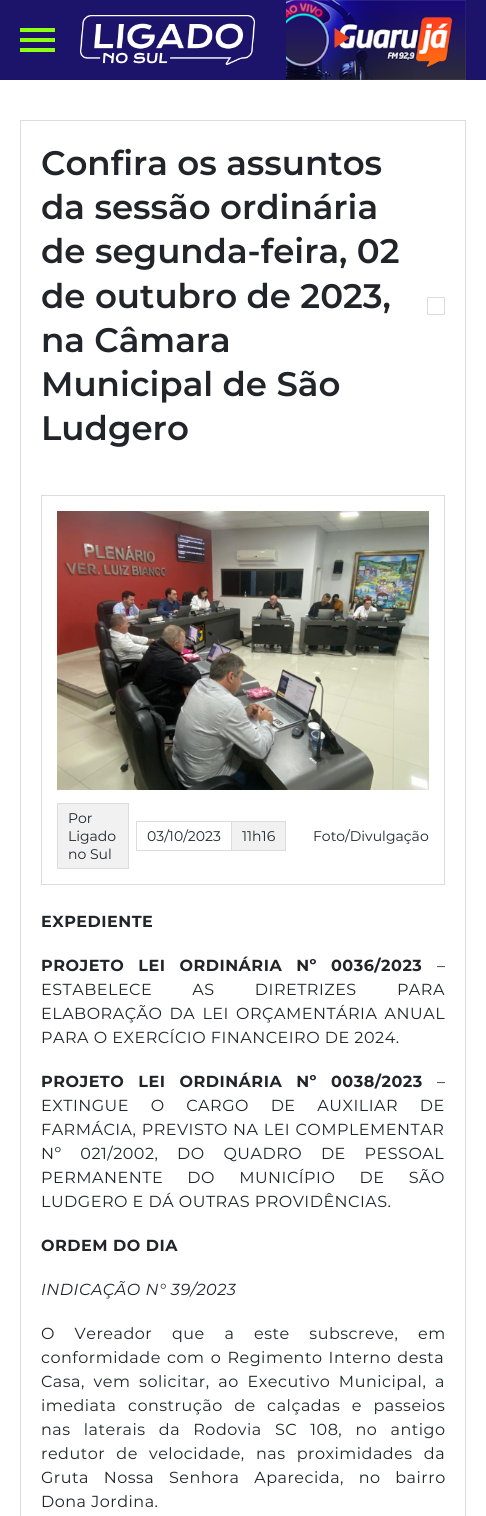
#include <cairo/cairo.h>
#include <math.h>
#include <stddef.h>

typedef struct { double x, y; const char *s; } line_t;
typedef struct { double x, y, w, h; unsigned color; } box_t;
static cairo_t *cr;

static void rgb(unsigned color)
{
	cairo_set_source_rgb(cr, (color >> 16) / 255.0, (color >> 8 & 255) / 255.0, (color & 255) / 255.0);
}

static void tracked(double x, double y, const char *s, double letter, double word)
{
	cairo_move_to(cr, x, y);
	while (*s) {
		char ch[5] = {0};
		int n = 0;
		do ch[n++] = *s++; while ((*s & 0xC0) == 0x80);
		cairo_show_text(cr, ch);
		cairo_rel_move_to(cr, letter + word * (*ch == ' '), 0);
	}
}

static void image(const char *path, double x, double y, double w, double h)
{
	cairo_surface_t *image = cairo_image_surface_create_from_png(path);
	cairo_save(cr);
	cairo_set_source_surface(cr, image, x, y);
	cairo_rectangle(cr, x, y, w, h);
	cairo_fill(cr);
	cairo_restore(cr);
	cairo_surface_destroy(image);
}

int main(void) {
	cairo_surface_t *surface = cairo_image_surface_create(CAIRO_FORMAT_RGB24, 486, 1516);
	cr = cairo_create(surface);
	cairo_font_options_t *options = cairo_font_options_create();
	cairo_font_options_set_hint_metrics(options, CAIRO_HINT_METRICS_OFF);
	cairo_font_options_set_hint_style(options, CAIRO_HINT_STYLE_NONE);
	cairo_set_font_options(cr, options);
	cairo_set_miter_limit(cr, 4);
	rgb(0xffffff);
	cairo_paint(cr);
	{
		static const box_t items[] = {
			{0, 0, 486, 80, 0x1c146a},
			{20, 28, 35, 4, 0x90ff16},
			{20, 38, 35, 4, 0x90ff16},
			{20, 48, 35, 4, 0x90ff16},
		};
		for (size_t i = 0; i < sizeof items / sizeof *items; i++) {
			rgb(items[i].color);
			cairo_rectangle(cr, items[i].x, items[i].y, items[i].w, items[i].h);
			cairo_fill(cr);
		}
	}
	image("img/1.png", 80, 15, 175, 50);
	image("img/2.png", 286, 0, 180, 80);
	rgb(0xef4523);
	cairo_new_path(cr);
	cairo_move_to(cr, 334.5, 28);
	cairo_line_to(cr, 349.5, 38);
	cairo_line_to(cr, 334.5, 48);
	cairo_close_path(cr);
	cairo_fill(cr);
	cairo_rectangle(cr, 20.5, 120.5, 445, 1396);
	rgb(0xdcdcdc);
	cairo_set_line_width(cr, 1);
	cairo_stroke(cr);
	cairo_rectangle(cr, 427.5, 297.5, 17, 17);
	cairo_stroke(cr);
	cairo_rectangle(cr, 41.5, 495.5, 403, 389);
	cairo_stroke(cr);
	image("img/3.png", 57, 511, 372, 279);
	rgb(0xf1f1f1);
	cairo_rectangle(cr, 57.5, 803.5, 71, 65);
	cairo_fill_preserve(cr);
	rgb(0xdcdcdc);
	cairo_stroke(cr);
	{
		static const box_t items[] = {
			{136, 821, 95, 1, 0xdcdcdc},
			{136, 850, 95, 1, 0xdcdcdc},
			{136, 821, 1, 30, 0xdcdcdc},
		};
		for (size_t i = 0; i < sizeof items / sizeof *items; i++) {
			rgb(items[i].color);
			cairo_rectangle(cr, items[i].x, items[i].y, items[i].w, items[i].h);
			cairo_fill(cr);
		}
	}
	rgb(0xf1f1f1);
	cairo_rectangle(cr, 231.5, 821.5, 54, 29);
	cairo_fill_preserve(cr);
	rgb(0xdcdcdc);
	cairo_stroke(cr);
	cairo_select_font_face(cr, "Montserrat SemiBold", CAIRO_FONT_SLANT_NORMAL, CAIRO_FONT_WEIGHT_NORMAL);
	cairo_set_font_size(cr, 34);
	rgb(0x212529);
	{
		static const line_t items[] = {
			{41, 175, "Confira os assuntos"},
			{41, 219, "da sessão ordinária"},
			{41, 263, "de segunda-feira, 02"},
			{41, 308, "de outubro de 2023,"},
			{41, 352, "na Câmara"},
			{41, 396, "Municipal de São"},
			{41, 440, "Ludgero"},
		};
		for (size_t i = 0; i < sizeof items / sizeof *items; i++) {
			cairo_move_to(cr, items[i].x, items[i].y);
			cairo_show_text(cr, items[i].s);
		}
	}
	cairo_select_font_face(cr, "Montserrat", CAIRO_FONT_SLANT_NORMAL, CAIRO_FONT_WEIGHT_NORMAL);
	cairo_set_font_size(cr, 14);
	{
		static const line_t items[] = {
			{68, 823, "Por"},
			{68, 841, "Ligado"},
			{68, 859, "no Sul"},
			{147, 841, "03/10/2023"},
			{242, 841, "11h16"},
			{313, 841, "Foto/Divulgação"},
		};
		for (size_t i = 0; i < sizeof items / sizeof *items; i++) {
			cairo_move_to(cr, items[i].x, items[i].y);
			cairo_show_text(cr, items[i].s);
		}
	}
	cairo_select_font_face(cr, "Montserrat", CAIRO_FONT_SLANT_NORMAL, CAIRO_FONT_WEIGHT_BOLD);
	cairo_set_font_size(cr, 16);
	tracked(41, 927, "EXPEDIENTE", 0.5, 0);
	tracked(41, 971, "PROJETO LEI ORDINÁRIA Nº 0036/2023", 0.5, 9);
	cairo_select_font_face(cr, "Montserrat", CAIRO_FONT_SLANT_NORMAL, CAIRO_FONT_WEIGHT_NORMAL);
	tracked(437, 971, "–", 0.5, 0);
	tracked(41, 995, "ESTABELECE AS DIRETRIZES PARA", 0.5, 35.5);
	tracked(41, 1019, "ELABORAÇÃO DA LEI ORÇAMENTÁRIA ANUAL", 0.5, 2.5);
	tracked(41, 1043, "PARA O EXERCÍCIO FINANCEIRO DE 2024.", 0.5, 0);
	cairo_select_font_face(cr, "Montserrat", CAIRO_FONT_SLANT_NORMAL, CAIRO_FONT_WEIGHT_BOLD);
	tracked(41, 1087, "PROJETO LEI ORDINÁRIA Nº 0038/2023", 0.5, 9);
	cairo_select_font_face(cr, "Montserrat", CAIRO_FONT_SLANT_NORMAL, CAIRO_FONT_WEIGHT_NORMAL);
	tracked(437, 1087, "–", 0.5, 0);
	tracked(41, 1111, "EXTINGUE O CARGO DE AUXILIAR DE", 0.5, 17);
	tracked(41, 1135, "FARMÁCIA, PREVISTO NA LEI COMPLEMENTAR", 0.5, 0.5);
	tracked(41, 1159, "Nº 021/2002, DO QUADRO DE PESSOAL", 0.5, 14);
	tracked(41, 1183, "PERMANENTE DO MUNICÍPIO DE SÃO", 0.5, 19.5);
	tracked(41, 1207, "LUDGERO E DÁ OUTRAS PROVIDÊNCIAS.", 0.5, 0);
	cairo_select_font_face(cr, "Montserrat", CAIRO_FONT_SLANT_NORMAL, CAIRO_FONT_WEIGHT_BOLD);
	tracked(41, 1251, "ORDEM DO DIA", 0.5, 0);
	cairo_select_font_face(cr, "Montserrat", CAIRO_FONT_SLANT_ITALIC, CAIRO_FONT_WEIGHT_NORMAL);
	tracked(41, 1295, "INDICAÇÃO N° 39/2023", 0.5, 0);
	cairo_select_font_face(cr, "Montserrat", CAIRO_FONT_SLANT_NORMAL, CAIRO_FONT_WEIGHT_NORMAL);
	tracked(41, 1339, "O Vereador que a este subscreve, em", 0.5, 15);
	tracked(41, 1363, "conformidade com o Regimento Interno desta", 0.5, 1.5);
	tracked(41, 1387, "Casa, vem solicitar, ao Executivo Municipal, a", 0.5, 4);
	tracked(41, 1411, "imediata construção de calçadas e passeios", 0.5, 6.75);
	tracked(41, 1435, "nas laterais da Rodovia SC 108, no antigo", 0.5, 8.5);
	tracked(41, 1459, "redutor de velocidade, nas proximidades da", 0.5, 6.5);
	tracked(41, 1483, "Gruta Nossa Senhora Aparecida, no bairro", 0.5, 10);
	tracked(41, 1507, "Dona Jordina.", 0.5, 0);
	cairo_surface_write_to_png(surface, "page.png");
	cairo_font_options_destroy(options);
	cairo_destroy(cr);
	cairo_surface_destroy(surface);
	return 0;
}
